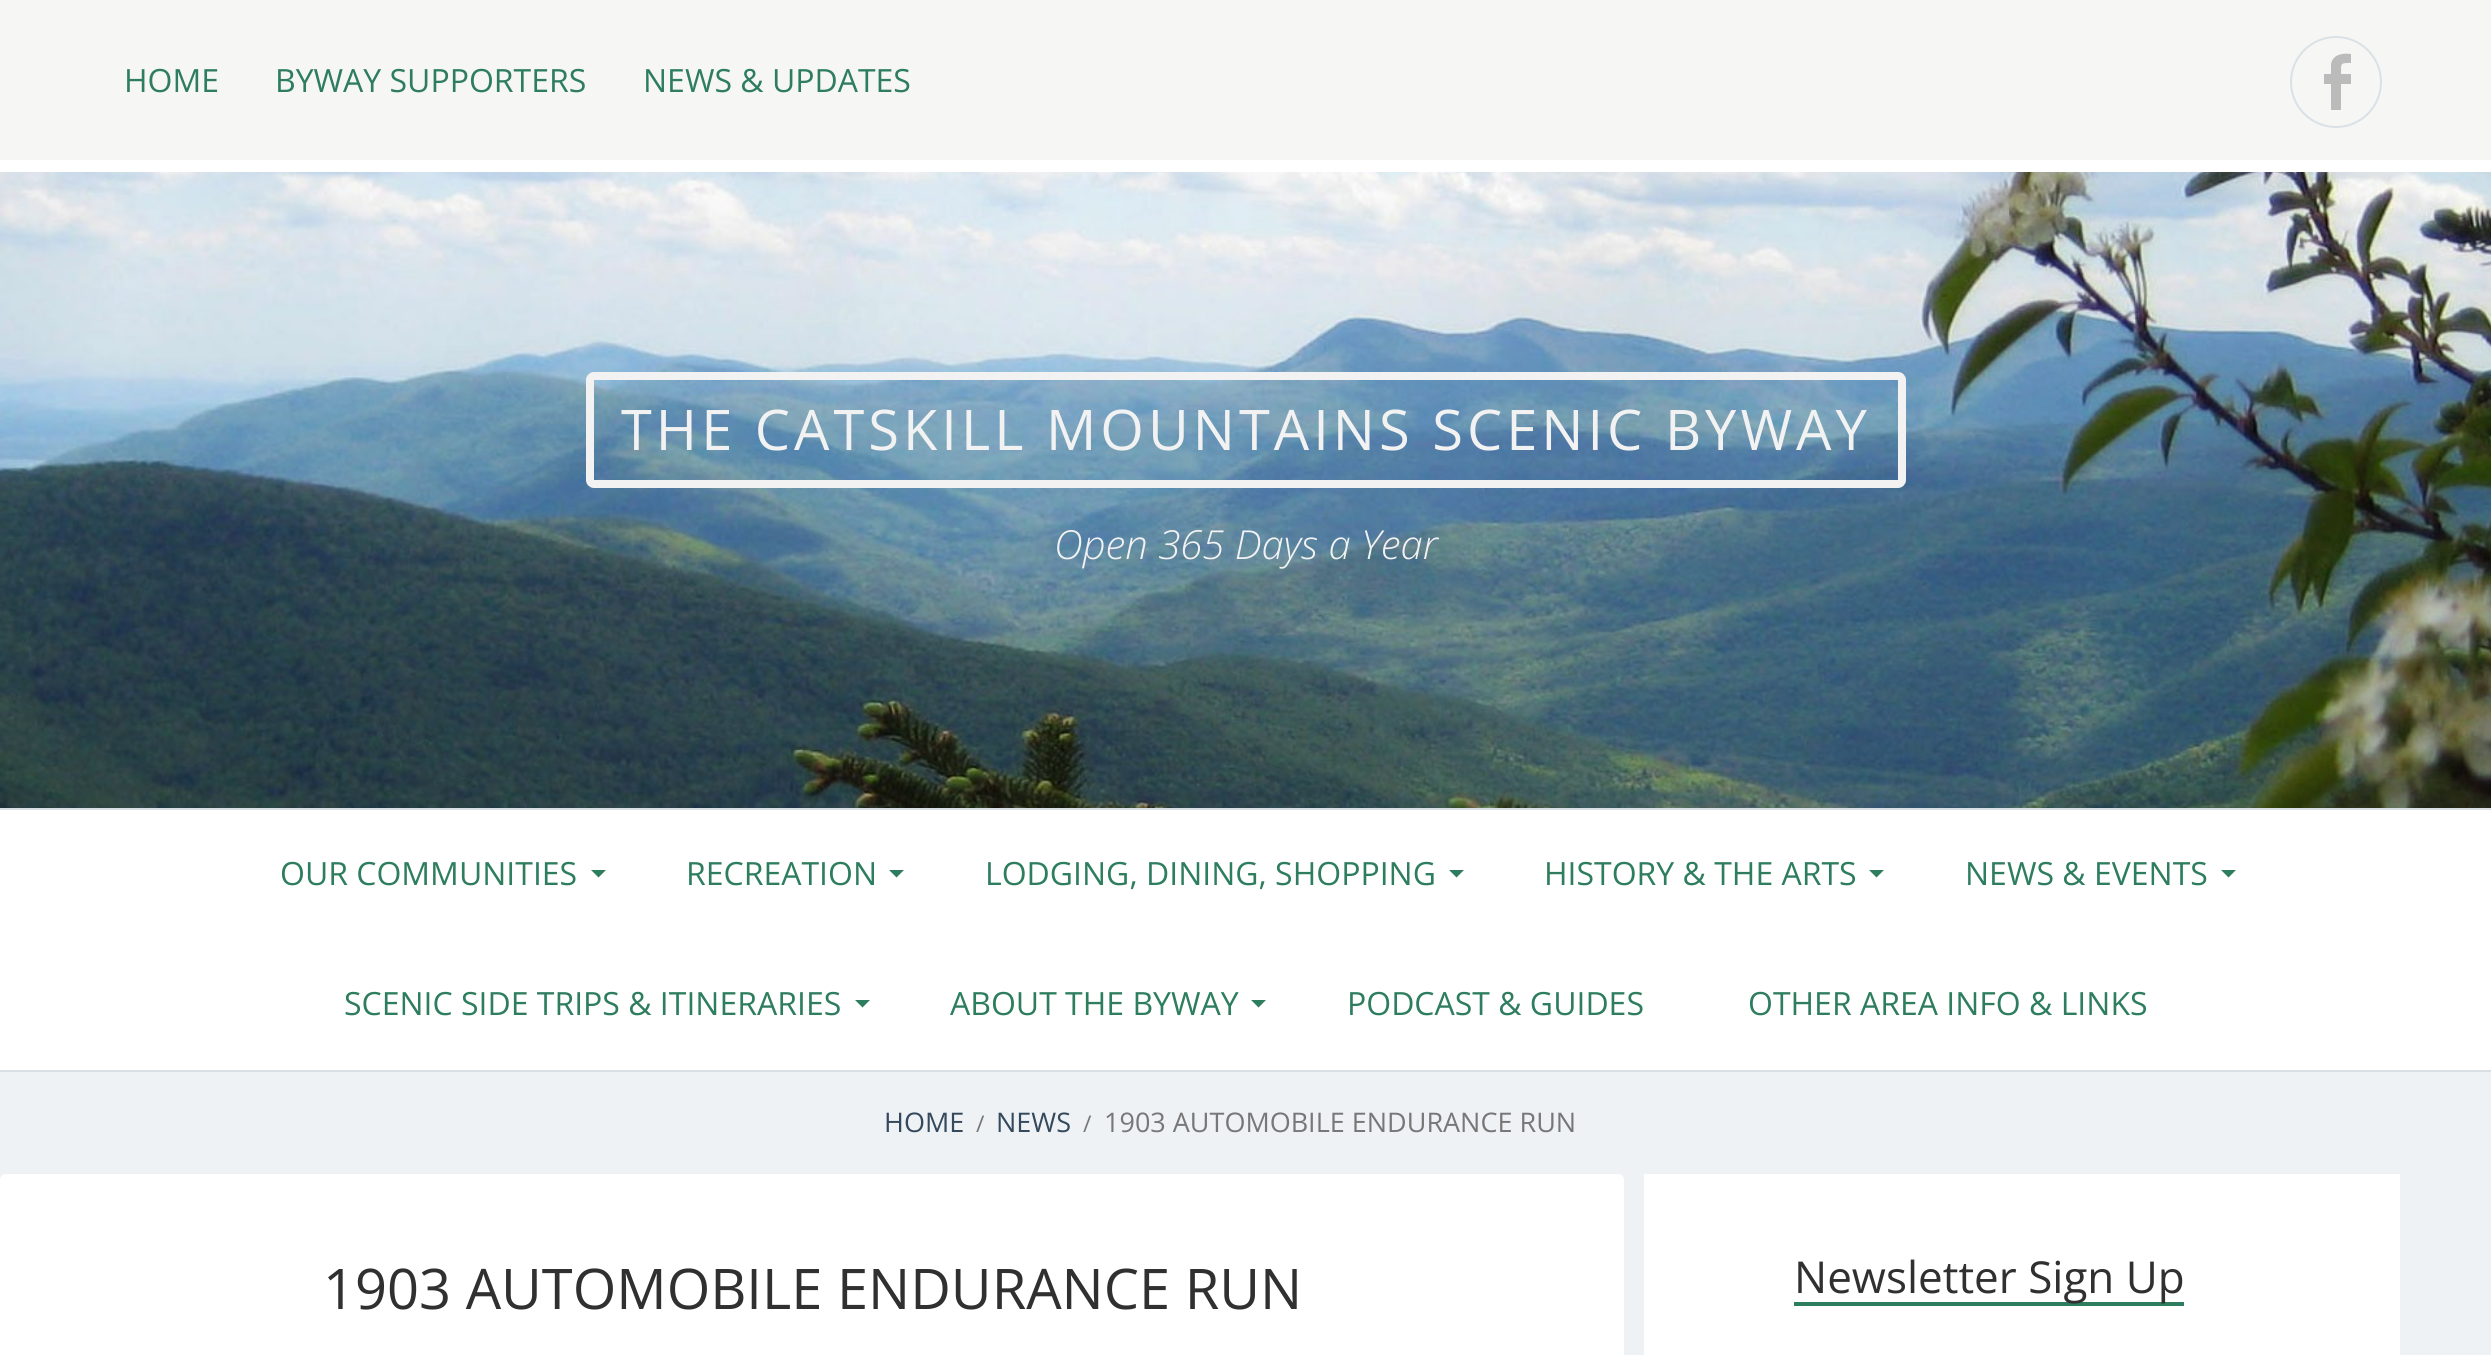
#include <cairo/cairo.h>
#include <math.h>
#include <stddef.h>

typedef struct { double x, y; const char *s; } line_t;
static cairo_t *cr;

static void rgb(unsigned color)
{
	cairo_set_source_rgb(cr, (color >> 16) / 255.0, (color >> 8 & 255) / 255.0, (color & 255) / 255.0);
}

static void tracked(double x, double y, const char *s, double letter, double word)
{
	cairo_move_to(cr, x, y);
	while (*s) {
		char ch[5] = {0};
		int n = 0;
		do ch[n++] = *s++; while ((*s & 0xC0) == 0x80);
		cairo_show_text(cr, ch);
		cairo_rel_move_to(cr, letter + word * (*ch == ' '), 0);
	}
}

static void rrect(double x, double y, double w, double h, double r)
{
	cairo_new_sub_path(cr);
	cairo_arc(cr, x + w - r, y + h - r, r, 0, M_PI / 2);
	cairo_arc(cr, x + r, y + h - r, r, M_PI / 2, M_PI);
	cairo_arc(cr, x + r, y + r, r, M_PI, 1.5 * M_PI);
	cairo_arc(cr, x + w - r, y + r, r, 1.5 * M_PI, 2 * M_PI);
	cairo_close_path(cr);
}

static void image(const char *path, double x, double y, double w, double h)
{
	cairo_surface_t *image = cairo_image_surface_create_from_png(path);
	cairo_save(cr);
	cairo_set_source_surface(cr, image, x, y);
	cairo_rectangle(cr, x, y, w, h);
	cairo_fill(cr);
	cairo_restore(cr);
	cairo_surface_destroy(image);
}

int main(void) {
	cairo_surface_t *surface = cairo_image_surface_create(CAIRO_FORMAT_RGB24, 2491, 1355);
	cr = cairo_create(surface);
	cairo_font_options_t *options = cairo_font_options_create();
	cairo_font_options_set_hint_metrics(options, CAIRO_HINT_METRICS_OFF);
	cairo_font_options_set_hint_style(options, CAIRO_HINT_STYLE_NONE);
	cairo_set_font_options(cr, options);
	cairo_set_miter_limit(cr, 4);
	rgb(0xeef2f5);
	cairo_paint(cr);
	rgb(0xf6f6f4);
	cairo_rectangle(cr, 0, 0, 2491, 160);
	cairo_fill(cr);
	rgb(0xffffff);
	cairo_rectangle(cr, 0, 160, 2491, 12);
	cairo_fill(cr);
	cairo_arc(cr, 2336, 82, 45, 0, 2 * M_PI);
	rgb(0xd9e1e7);
	cairo_stroke(cr);
	rgb(0xbbbbbb);
	cairo_new_path(cr);
	cairo_move_to(cr, 2341, 74);
	cairo_line_to(cr, 2351, 74);
	cairo_line_to(cr, 2351, 84);
	cairo_line_to(cr, 2341, 84);
	cairo_line_to(cr, 2341, 110);
	cairo_line_to(cr, 2331, 110);
	cairo_line_to(cr, 2331, 84);
	cairo_line_to(cr, 2324, 84);
	cairo_line_to(cr, 2324, 74);
	cairo_line_to(cr, 2331, 74);
	cairo_line_to(cr, 2331, 64);
	cairo_curve_to(cr, 2333, 54, 2343, 53, 2351, 54);
	cairo_line_to(cr, 2351, 63);
	cairo_curve_to(cr, 2340, 63, 2341, 63, 2341, 74);
	cairo_close_path(cr);
	cairo_fill(cr);
	image("img/1.png", 0, 172, 2491, 636);
	rgb(0xd9e1e7);
	cairo_rectangle(cr, 0, 808, 2491, 2);
	cairo_fill(cr);
	rrect(590, 376, 1312, 108, 4);
	rgb(0xf2f2f2);
	cairo_set_line_width(cr, 8);
	cairo_stroke(cr);
	rgb(0xffffff);
	cairo_rectangle(cr, 0, 810, 2491, 260);
	cairo_fill(cr);
	rgb(0xd9e1e7);
	cairo_rectangle(cr, 0, 1070, 2491, 2);
	cairo_fill(cr);
	rgb(0x2d7d5e);
	cairo_new_path(cr);
	cairo_move_to(cr, 591, 870);
	cairo_line_to(cr, 606, 870);
	cairo_line_to(cr, 598.5, 877.5);
	cairo_close_path(cr);
	cairo_fill(cr);
	cairo_new_path(cr);
	cairo_move_to(cr, 889, 870);
	cairo_line_to(cr, 904, 870);
	cairo_line_to(cr, 896.5, 877.5);
	cairo_close_path(cr);
	cairo_fill(cr);
	cairo_new_path(cr);
	cairo_move_to(cr, 1449, 870);
	cairo_line_to(cr, 1464, 870);
	cairo_line_to(cr, 1456.5, 877.5);
	cairo_close_path(cr);
	cairo_fill(cr);
	cairo_new_path(cr);
	cairo_move_to(cr, 1869, 870);
	cairo_line_to(cr, 1884, 870);
	cairo_line_to(cr, 1876.5, 877.5);
	cairo_close_path(cr);
	cairo_fill(cr);
	cairo_new_path(cr);
	cairo_move_to(cr, 2221, 870);
	cairo_line_to(cr, 2236, 870);
	cairo_line_to(cr, 2228.5, 877.5);
	cairo_close_path(cr);
	cairo_fill(cr);
	cairo_new_path(cr);
	cairo_move_to(cr, 855, 1000);
	cairo_line_to(cr, 870, 1000);
	cairo_line_to(cr, 862.5, 1007.5);
	cairo_close_path(cr);
	cairo_fill(cr);
	cairo_new_path(cr);
	cairo_move_to(cr, 1251, 1000);
	cairo_line_to(cr, 1266, 1000);
	cairo_line_to(cr, 1258.5, 1007.5);
	cairo_close_path(cr);
	cairo_fill(cr);
	rgb(0xffffff);
	rrect(0, 1174, 1624, 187, 6);
	cairo_fill(cr);
	cairo_rectangle(cr, 1644, 1174, 756, 181);
	cairo_fill(cr);
	rgb(0x2d7d5e);
	cairo_rectangle(cr, 1794, 1302, 390, 4);
	cairo_fill(cr);
	cairo_select_font_face(cr, "Open Sans", CAIRO_FONT_SLANT_NORMAL, CAIRO_FONT_WEIGHT_NORMAL);
	cairo_set_font_size(cr, 32);
	{
		static const line_t items[] = {
			{124, 92, "HOME"},
			{275, 92, "BYWAY SUPPORTERS"},
			{643, 92, "NEWS & UPDATES"},
		};
		for (size_t i = 0; i < sizeof items / sizeof *items; i++) {
			cairo_move_to(cr, items[i].x, items[i].y);
			cairo_show_text(cr, items[i].s);
		}
	}
	cairo_set_font_size(cr, 56);
	rgb(0xf2f2f2);
	tracked(621, 450, "THE CATSKILL MOUNTAINS SCENIC BYWAY", 4, 0);
	cairo_select_font_face(cr, "Open Sans Light", CAIRO_FONT_SLANT_ITALIC, CAIRO_FONT_WEIGHT_NORMAL);
	cairo_set_font_size(cr, 40);
	cairo_move_to(cr, 1054, 559);
	cairo_show_text(cr, "Open 365 Days a Year");
	cairo_select_font_face(cr, "Open Sans", CAIRO_FONT_SLANT_NORMAL, CAIRO_FONT_WEIGHT_NORMAL);
	cairo_set_font_size(cr, 32);
	rgb(0x2d7d5e);
	{
		static const line_t items[] = {
			{280, 885, "OUR COMMUNITIES"},
			{686, 885, "RECREATION"},
			{985, 885, "LODGING, DINING, SHOPPING"},
			{1544, 885, "HISTORY & THE ARTS"},
			{1965, 885, "NEWS & EVENTS"},
			{344, 1015, "SCENIC SIDE TRIPS & ITINERARIES"},
			{950, 1015, "ABOUT THE BYWAY"},
			{1347, 1015, "PODCAST & GUIDES"},
			{1748, 1015, "OTHER AREA INFO & LINKS"},
		};
		for (size_t i = 0; i < sizeof items / sizeof *items; i++) {
			cairo_move_to(cr, items[i].x, items[i].y);
			cairo_show_text(cr, items[i].s);
		}
	}
	cairo_set_font_size(cr, 27);
	rgb(0x35495d);
	cairo_move_to(cr, 884, 1132);
	cairo_show_text(cr, "HOME");
	cairo_set_font_size(cr, 23);
	rgb(0x777777);
	cairo_move_to(cr, 976, 1132);
	cairo_show_text(cr, "/");
	cairo_set_font_size(cr, 27);
	rgb(0x35495d);
	cairo_move_to(cr, 996, 1132);
	cairo_show_text(cr, "NEWS");
	cairo_set_font_size(cr, 23);
	rgb(0x777777);
	cairo_move_to(cr, 1083, 1132);
	cairo_show_text(cr, "/");
	cairo_set_font_size(cr, 27);
	cairo_move_to(cr, 1104, 1132);
	cairo_show_text(cr, "1903 AUTOMOBILE ENDURANCE RUN");
	cairo_set_font_size(cr, 56);
	rgb(0x303030);
	cairo_move_to(cr, 323, 1309);
	cairo_show_text(cr, "1903 AUTOMOBILE ENDURANCE RUN");
	cairo_set_font_size(cr, 44);
	cairo_move_to(cr, 1794, 1293);
	cairo_show_text(cr, "Newsletter Sign Up");
	cairo_surface_write_to_png(surface, "page.png");
	cairo_font_options_destroy(options);
	cairo_destroy(cr);
	cairo_surface_destroy(surface);
	return 0;
}
